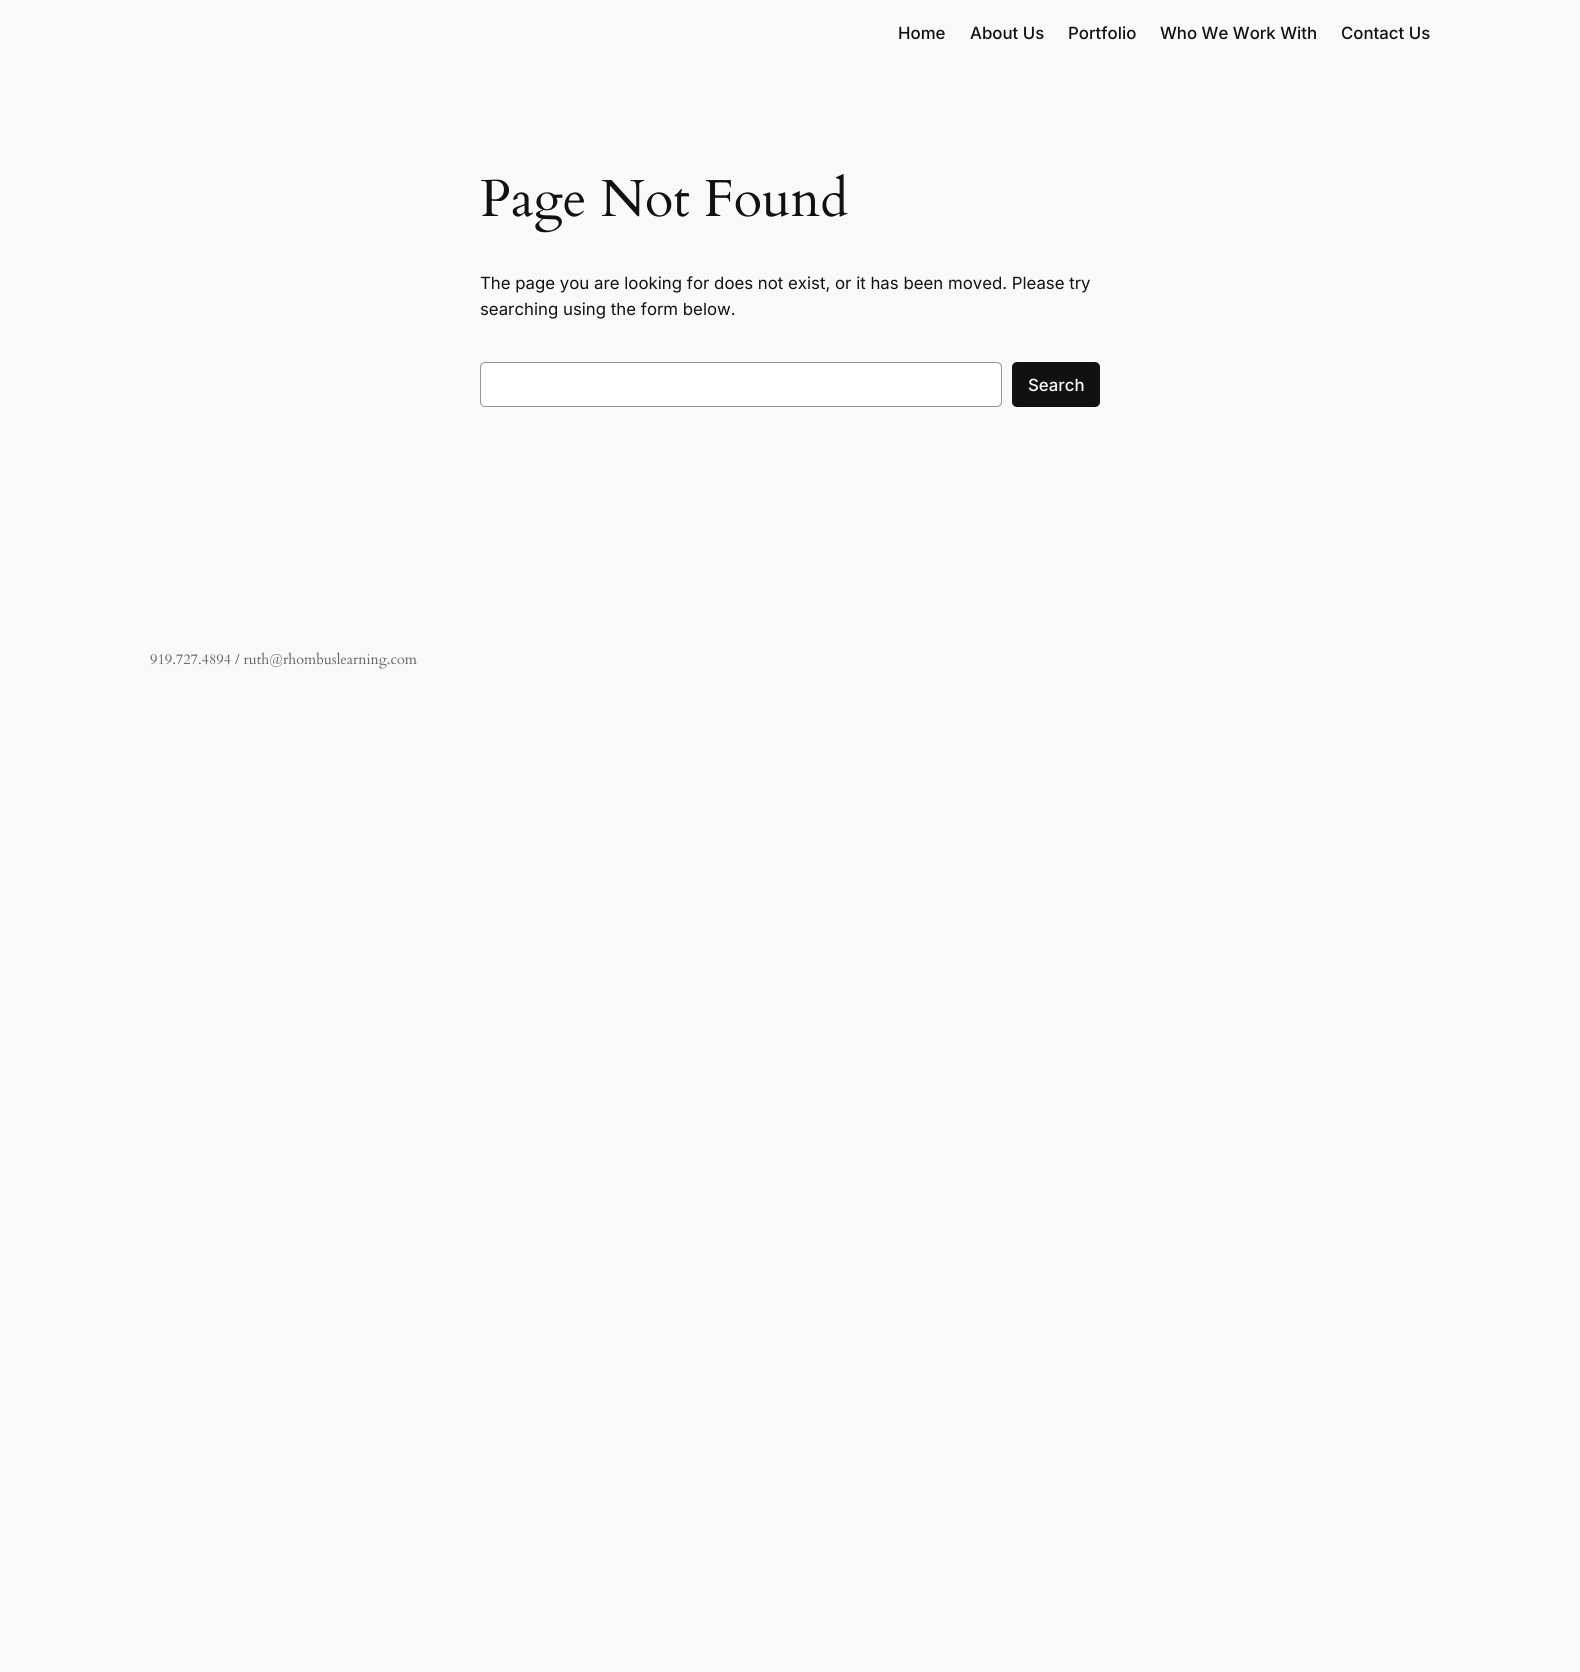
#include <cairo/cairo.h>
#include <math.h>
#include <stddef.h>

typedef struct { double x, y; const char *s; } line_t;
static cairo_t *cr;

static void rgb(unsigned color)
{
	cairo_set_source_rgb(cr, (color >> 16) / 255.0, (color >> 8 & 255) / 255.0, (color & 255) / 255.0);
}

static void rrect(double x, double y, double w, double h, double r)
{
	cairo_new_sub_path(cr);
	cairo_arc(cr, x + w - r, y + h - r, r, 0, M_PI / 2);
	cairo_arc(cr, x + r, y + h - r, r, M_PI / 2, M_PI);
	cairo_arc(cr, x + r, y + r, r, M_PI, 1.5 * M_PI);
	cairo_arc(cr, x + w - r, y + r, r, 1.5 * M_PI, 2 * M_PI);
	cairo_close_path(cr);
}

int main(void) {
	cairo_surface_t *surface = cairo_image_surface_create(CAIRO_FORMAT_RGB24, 1580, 1672);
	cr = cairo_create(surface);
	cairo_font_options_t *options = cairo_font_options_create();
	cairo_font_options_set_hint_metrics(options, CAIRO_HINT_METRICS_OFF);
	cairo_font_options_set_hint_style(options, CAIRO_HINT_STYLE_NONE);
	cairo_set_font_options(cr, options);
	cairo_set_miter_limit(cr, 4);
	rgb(0xf9f9f9);
	cairo_paint(cr);
	rgb(0xffffff);
	rrect(480.5, 362.5, 521, 44, 4.5);
	cairo_fill_preserve(cr);
	rgb(0x949494);
	cairo_set_line_width(cr, 1);
	cairo_stroke(cr);
	rgb(0x111111);
	rrect(1012, 362, 88, 45, 5);
	cairo_fill(cr);
	cairo_select_font_face(cr, "Inter Medium", CAIRO_FONT_SLANT_NORMAL, CAIRO_FONT_WEIGHT_NORMAL);
	cairo_set_font_size(cr, 16.8);
	{
		static const line_t items[] = {
			{898, 39, "Home"},
			{970, 39, "About Us"},
			{1068, 39, "Portfolio"},
			{1160, 39, "Who We Work With"},
			{1341, 39, "Contact Us"},
		};
		for (size_t i = 0; i < sizeof items / sizeof *items; i++) {
			cairo_move_to(cr, items[i].x, items[i].y);
			cairo_show_text(cr, items[i].s);
		}
	}
	cairo_select_font_face(cr, "Cardo", CAIRO_FONT_SLANT_NORMAL, CAIRO_FONT_WEIGHT_NORMAL);
	cairo_set_font_size(cr, 52.25);
	cairo_move_to(cr, 480, 216);
	cairo_show_text(cr, "Page Not Found");
	cairo_select_font_face(cr, "Inter", CAIRO_FONT_SLANT_NORMAL, CAIRO_FONT_WEIGHT_NORMAL);
	cairo_set_font_size(cr, 16.8);
	cairo_move_to(cr, 480, 289);
	cairo_show_text(cr, "The page you are looking for does not exist, or it has been moved. Please try");
	cairo_move_to(cr, 480, 315);
	cairo_show_text(cr, "searching using the form below.");
	cairo_select_font_face(cr, "Inter Medium", CAIRO_FONT_SLANT_NORMAL, CAIRO_FONT_WEIGHT_NORMAL);
	rgb(0xf9f9f9);
	cairo_move_to(cr, 1028, 391);
	cairo_show_text(cr, "Search");
	cairo_select_font_face(cr, "Cardo", CAIRO_FONT_SLANT_NORMAL, CAIRO_FONT_WEIGHT_NORMAL);
	cairo_set_font_size(cr, 14.4);
	rgb(0x636363);
	cairo_move_to(cr, 150, 664);
	cairo_show_text(cr, "919.727.4894 / ruth@rhombuslearning.com");
	cairo_surface_write_to_png(surface, "page.png");
	cairo_font_options_destroy(options);
	cairo_destroy(cr);
	cairo_surface_destroy(surface);
	return 0;
}
